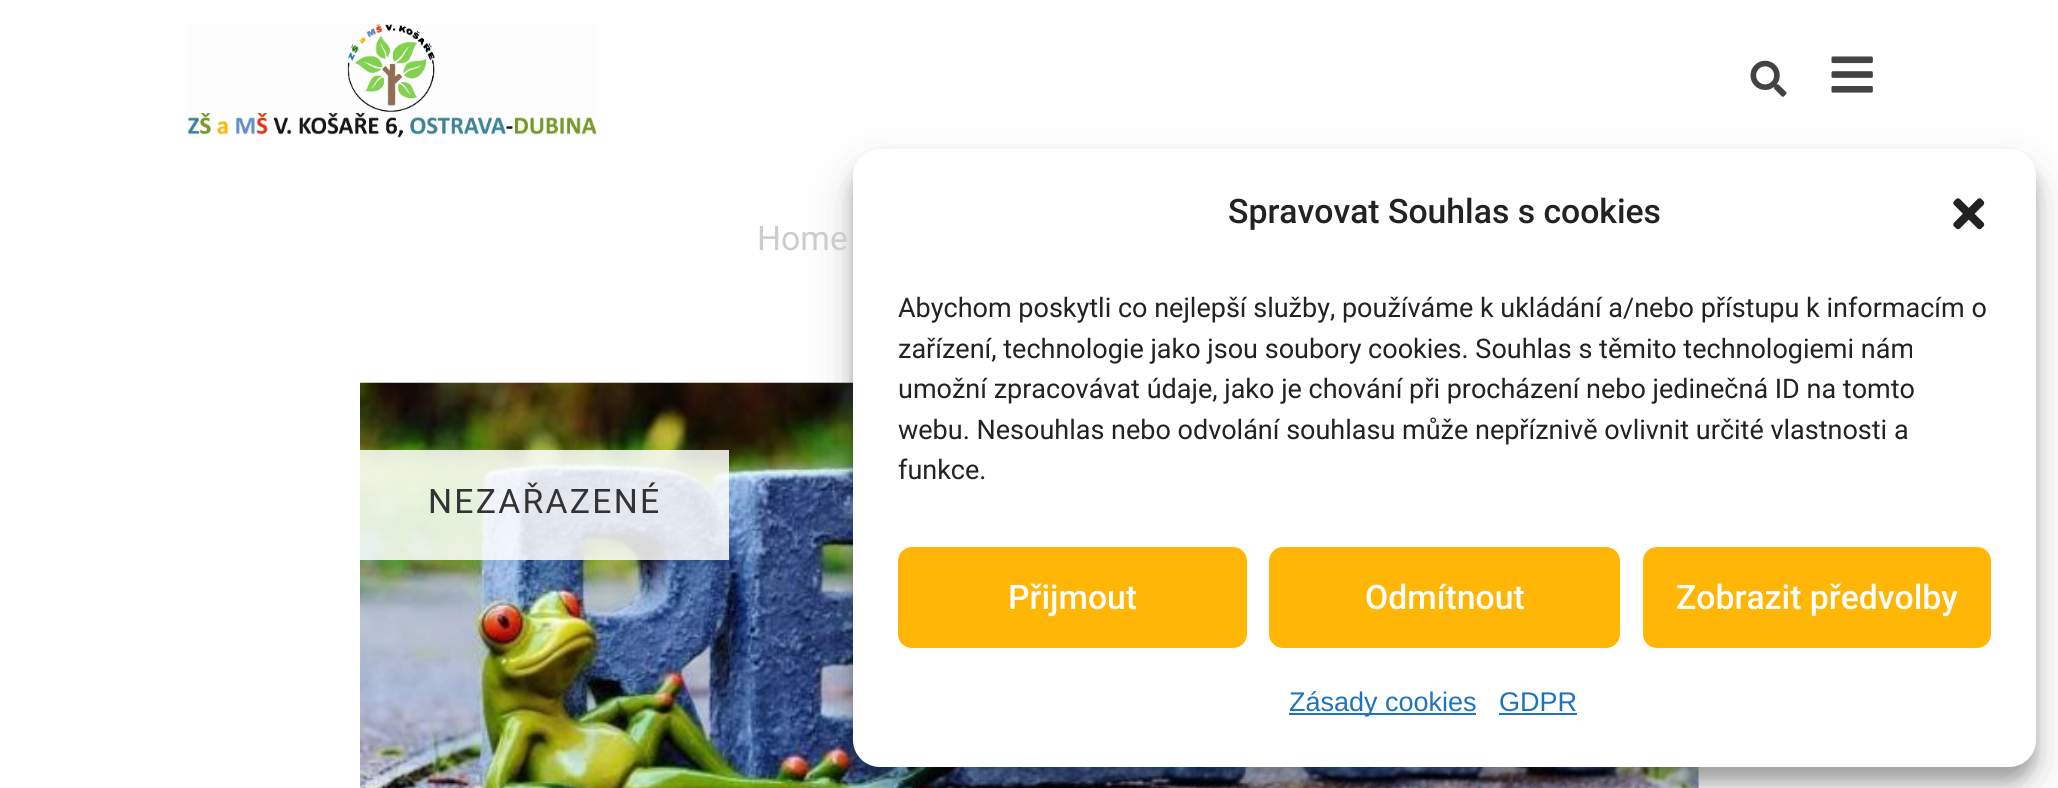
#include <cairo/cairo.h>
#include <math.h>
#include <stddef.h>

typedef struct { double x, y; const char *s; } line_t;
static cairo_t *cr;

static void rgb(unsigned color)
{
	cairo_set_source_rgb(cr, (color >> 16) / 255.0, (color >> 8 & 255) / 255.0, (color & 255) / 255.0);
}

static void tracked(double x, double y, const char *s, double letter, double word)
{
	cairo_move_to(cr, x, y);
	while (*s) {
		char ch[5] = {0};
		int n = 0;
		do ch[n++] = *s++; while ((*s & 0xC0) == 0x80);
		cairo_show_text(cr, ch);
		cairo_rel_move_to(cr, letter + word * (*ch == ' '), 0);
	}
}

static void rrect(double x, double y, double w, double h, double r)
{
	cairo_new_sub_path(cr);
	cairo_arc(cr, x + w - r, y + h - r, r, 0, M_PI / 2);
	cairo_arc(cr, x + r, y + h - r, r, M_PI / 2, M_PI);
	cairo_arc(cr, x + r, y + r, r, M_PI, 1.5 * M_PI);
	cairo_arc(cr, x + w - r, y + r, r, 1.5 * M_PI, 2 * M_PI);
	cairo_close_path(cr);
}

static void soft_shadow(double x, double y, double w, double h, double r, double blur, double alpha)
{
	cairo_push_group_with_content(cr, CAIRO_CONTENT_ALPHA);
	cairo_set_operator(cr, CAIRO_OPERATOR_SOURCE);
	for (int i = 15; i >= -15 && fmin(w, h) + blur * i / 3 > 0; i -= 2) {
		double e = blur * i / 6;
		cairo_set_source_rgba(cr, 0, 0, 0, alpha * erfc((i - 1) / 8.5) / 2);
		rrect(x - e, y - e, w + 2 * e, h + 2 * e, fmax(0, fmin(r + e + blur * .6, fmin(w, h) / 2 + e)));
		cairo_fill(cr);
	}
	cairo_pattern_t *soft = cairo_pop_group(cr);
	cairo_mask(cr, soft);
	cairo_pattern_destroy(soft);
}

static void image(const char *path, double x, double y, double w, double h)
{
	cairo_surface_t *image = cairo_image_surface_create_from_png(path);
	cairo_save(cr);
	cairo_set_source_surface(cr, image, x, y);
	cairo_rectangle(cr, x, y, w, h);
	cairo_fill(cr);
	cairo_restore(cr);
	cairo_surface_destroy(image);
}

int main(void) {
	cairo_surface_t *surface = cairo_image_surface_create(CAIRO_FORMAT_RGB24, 2058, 788);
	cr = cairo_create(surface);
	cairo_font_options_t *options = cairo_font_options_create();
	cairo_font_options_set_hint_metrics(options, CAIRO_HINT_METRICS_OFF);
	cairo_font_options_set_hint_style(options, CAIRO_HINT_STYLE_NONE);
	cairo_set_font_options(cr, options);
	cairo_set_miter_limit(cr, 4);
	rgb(0xffffff);
	cairo_paint(cr);
	image("img/1.png", 187, 23, 410, 115);
	image("img/2.png", 1750, 60, 37, 37);
	image("img/3.png", 1831, 56, 42, 37);
	image("img/5.png", 360, 382, 1339, 406);
	rgb(0x000000);
	soft_shadow(853, 162, 1183, 619, 27, 7, 0.23);
	soft_shadow(853, 171, 1183, 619, 27, 22.5, 0.19);
	rgb(0xffffff);
	rrect(853, 149, 1183, 618, 27);
	cairo_fill(cr);
	image("img/4.png", 1953, 198, 32, 32);
	rgb(0xffb606);
	rrect(899, 548, 347, 99, 13);
	cairo_fill_preserve(cr);
	cairo_stroke(cr);
	rrect(1270, 548, 349, 99, 13);
	cairo_fill_preserve(cr);
	cairo_stroke(cr);
	rrect(1644, 548, 346, 99, 13);
	cairo_fill_preserve(cr);
	cairo_stroke(cr);
	rgb(0x1e73be);
	cairo_rectangle(cr, 1289, 713, 187, 2);
	cairo_fill(cr);
	cairo_rectangle(cr, 1499, 713, 78, 2);
	cairo_fill(cr);
	cairo_set_source_rgba(cr, 1, 1, 1, 0.85);
	cairo_rectangle(cr, 360, 450, 369, 110);
	cairo_fill(cr);
	cairo_select_font_face(cr, "Roboto", CAIRO_FONT_SLANT_NORMAL, CAIRO_FONT_WEIGHT_NORMAL);
	cairo_set_font_size(cr, 33.75);
	rgb(0xcccccc);
	cairo_move_to(cr, 757, 250);
	cairo_show_text(cr, "Home");
	cairo_select_font_face(cr, "Roboto Medium", CAIRO_FONT_SLANT_NORMAL, CAIRO_FONT_WEIGHT_NORMAL);
	rgb(0x222222);
	cairo_move_to(cr, 1228, 223);
	cairo_show_text(cr, "Spravovat Souhlas s cookies");
	cairo_select_font_face(cr, "Roboto", CAIRO_FONT_SLANT_NORMAL, CAIRO_FONT_WEIGHT_NORMAL);
	cairo_set_font_size(cr, 27);
	{
		static const line_t items[] = {
			{898, 317, "Abychom poskytli co nejlepší služby, používáme k ukládání a/nebo přístupu k informacím o"},
			{898, 358, "zařízení, technologie jako jsou soubory cookies. Souhlas s těmito technologiemi nám"},
			{898, 398, "umožní zpracovávat údaje, jako je chování při procházení nebo jedinečná ID na tomto"},
			{898, 439, "webu. Nesouhlas nebo odvolání souhlasu může nepříznivě ovlivnit určité vlastnosti a"},
			{898, 479, "funkce."},
		};
		for (size_t i = 0; i < sizeof items / sizeof *items; i++) {
			cairo_move_to(cr, items[i].x, items[i].y);
			cairo_show_text(cr, items[i].s);
		}
	}
	cairo_select_font_face(cr, "Roboto Medium", CAIRO_FONT_SLANT_NORMAL, CAIRO_FONT_WEIGHT_NORMAL);
	cairo_set_font_size(cr, 33.75);
	rgb(0xffffff);
	{
		static const line_t items[] = {
			{1008, 609, "Přijmout"},
			{1365, 609, "Odmítnout"},
			{1676, 609, "Zobrazit předvolby"},
		};
		for (size_t i = 0; i < sizeof items / sizeof *items; i++) {
			cairo_move_to(cr, items[i].x, items[i].y);
			cairo_show_text(cr, items[i].s);
		}
	}
	cairo_select_font_face(cr, "Liberation Sans", CAIRO_FONT_SLANT_NORMAL, CAIRO_FONT_WEIGHT_NORMAL);
	cairo_set_font_size(cr, 27);
	rgb(0x1e73be);
	cairo_move_to(cr, 1289, 711);
	cairo_show_text(cr, "Zásady cookies");
	cairo_move_to(cr, 1499, 711);
	cairo_show_text(cr, "GDPR");
	cairo_select_font_face(cr, "Roboto", CAIRO_FONT_SLANT_NORMAL, CAIRO_FONT_WEIGHT_NORMAL);
	cairo_set_font_size(cr, 33.75);
	rgb(0x333333);
	tracked(428, 513, "NEZAŘAZENÉ", 2.25, 0);
	cairo_surface_write_to_png(surface, "page.png");
	cairo_font_options_destroy(options);
	cairo_destroy(cr);
	cairo_surface_destroy(surface);
	return 0;
}
